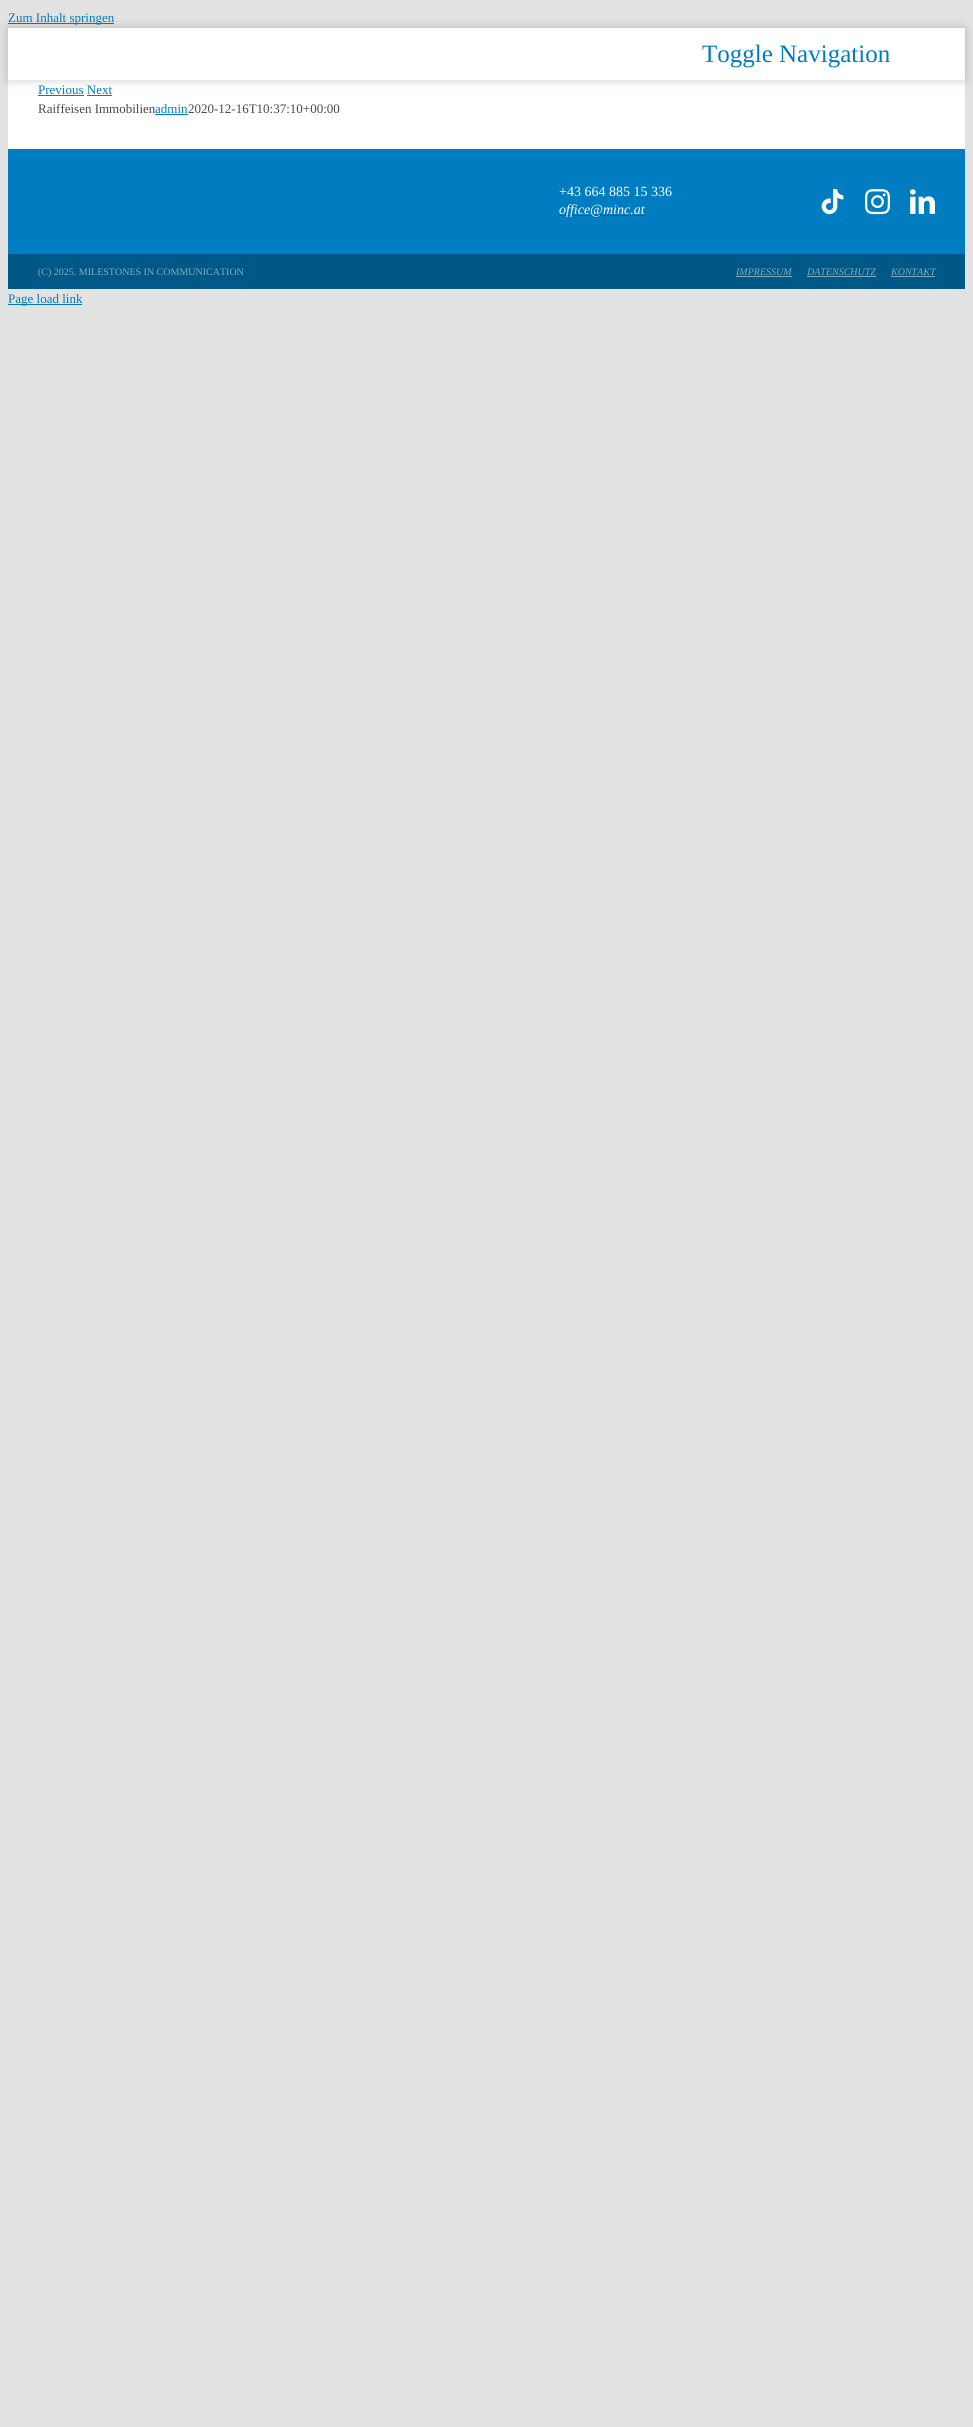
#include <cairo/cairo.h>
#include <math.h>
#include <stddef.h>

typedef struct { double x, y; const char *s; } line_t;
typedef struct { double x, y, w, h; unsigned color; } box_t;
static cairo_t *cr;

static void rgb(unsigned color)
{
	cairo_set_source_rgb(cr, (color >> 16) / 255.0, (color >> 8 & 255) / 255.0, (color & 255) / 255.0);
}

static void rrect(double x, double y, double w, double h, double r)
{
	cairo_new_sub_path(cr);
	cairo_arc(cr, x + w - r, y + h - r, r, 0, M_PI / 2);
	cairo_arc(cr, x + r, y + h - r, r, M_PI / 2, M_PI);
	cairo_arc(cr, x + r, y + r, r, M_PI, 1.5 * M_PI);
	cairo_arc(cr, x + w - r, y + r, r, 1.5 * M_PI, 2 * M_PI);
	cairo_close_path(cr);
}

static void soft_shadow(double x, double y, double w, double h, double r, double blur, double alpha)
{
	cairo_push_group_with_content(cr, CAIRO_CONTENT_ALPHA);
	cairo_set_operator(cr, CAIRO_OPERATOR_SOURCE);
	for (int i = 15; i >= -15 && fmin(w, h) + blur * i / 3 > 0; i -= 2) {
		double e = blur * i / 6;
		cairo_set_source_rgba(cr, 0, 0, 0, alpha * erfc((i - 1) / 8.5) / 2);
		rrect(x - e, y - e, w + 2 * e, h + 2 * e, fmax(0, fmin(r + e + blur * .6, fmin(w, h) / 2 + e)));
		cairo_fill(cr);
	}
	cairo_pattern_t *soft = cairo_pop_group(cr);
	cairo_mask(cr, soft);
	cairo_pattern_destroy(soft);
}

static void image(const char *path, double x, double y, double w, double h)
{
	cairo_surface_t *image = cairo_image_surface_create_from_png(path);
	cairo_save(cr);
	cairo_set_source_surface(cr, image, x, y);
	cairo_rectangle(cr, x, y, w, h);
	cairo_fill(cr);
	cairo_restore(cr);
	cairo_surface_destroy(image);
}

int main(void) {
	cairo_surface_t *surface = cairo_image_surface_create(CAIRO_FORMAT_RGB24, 973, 2427);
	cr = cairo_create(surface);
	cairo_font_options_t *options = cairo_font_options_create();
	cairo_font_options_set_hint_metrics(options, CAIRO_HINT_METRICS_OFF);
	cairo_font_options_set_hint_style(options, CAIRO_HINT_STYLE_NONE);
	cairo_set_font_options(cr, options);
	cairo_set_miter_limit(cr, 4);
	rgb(0xe2e2e2);
	cairo_paint(cr);
	{
		static const box_t items[] = {
			{8, 23, 106, 1, 0x007cc1},
			{8, 28, 957, 121, 0xffffff},
			{38, 95, 46, 1, 0x007cc1},
			{87, 95, 25, 1, 0x007cc1},
		};
		for (size_t i = 0; i < sizeof items / sizeof *items; i++) {
			rgb(items[i].color);
			cairo_rectangle(cr, items[i].x, items[i].y, items[i].w, items[i].h);
			cairo_fill(cr);
		}
	}
	cairo_save(cr);
	cairo_set_fill_rule(cr, CAIRO_FILL_RULE_EVEN_ODD);
	cairo_new_path(cr);
	cairo_move_to(cr, 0, 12);
	cairo_line_to(cr, 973, 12);
	cairo_line_to(cr, 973, 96);
	cairo_line_to(cr, 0, 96);
	cairo_close_path(cr);
	cairo_move_to(cr, 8, 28);
	cairo_line_to(cr, 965, 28);
	cairo_line_to(cr, 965, 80);
	cairo_line_to(cr, 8, 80);
	cairo_close_path(cr);
	cairo_clip(cr);
	rgb(0x000000);
	soft_shadow(8, 28, 957, 52, 0, 5, 0.2);
	cairo_restore(cr);
	{
		static const box_t items[] = {
			{155, 114, 33, 1, 0x007cc1},
			{8, 149, 957, 105, 0x007cc1},
			{559, 215, 86, 1, 0x4a4843},
		};
		for (size_t i = 0; i < sizeof items / sizeof *items; i++) {
			rgb(items[i].color);
			cairo_rectangle(cr, items[i].x, items[i].y, items[i].w, items[i].h);
			cairo_fill(cr);
		}
	}
	image("img/1.png", 821, 189, 23, 26);
	image("img/2.png", 865, 189, 25, 26);
	image("img/3.png", 910, 189, 25, 25);
	{
		static const box_t items[] = {
			{8, 254, 957, 35, 0x005886},
			{736, 276, 56, 1, 0x80acc3},
			{807, 276, 69, 1, 0x80acc3},
			{891, 276, 44, 1, 0x80acc3},
			{8, 304, 74, 1, 0x007cc1},
		};
		for (size_t i = 0; i < sizeof items / sizeof *items; i++) {
			rgb(items[i].color);
			cairo_rectangle(cr, items[i].x, items[i].y, items[i].w, items[i].h);
			cairo_fill(cr);
		}
	}
	cairo_select_font_face(cr, "Liberation Serif", CAIRO_FONT_SLANT_NORMAL, CAIRO_FONT_WEIGHT_NORMAL);
	cairo_set_font_size(cr, 13);
	cairo_move_to(cr, 8, 22);
	cairo_show_text(cr, "Zum Inhalt springen");
	cairo_set_font_size(cr, 25);
	cairo_move_to(cr, 702, 62);
	cairo_show_text(cr, "Toggle Navigation");
	cairo_set_font_size(cr, 13);
	cairo_move_to(cr, 38, 94);
	cairo_show_text(cr, "Previous Next");
	rgb(0x4a4843);
	cairo_move_to(cr, 38, 113);
	cairo_show_text(cr, "Raiffeisen Immobilien");
	rgb(0x007cc1);
	cairo_move_to(cr, 155, 113);
	cairo_show_text(cr, "admin");
	rgb(0x4a4843);
	cairo_move_to(cr, 188, 113);
	cairo_show_text(cr, "2020-12-16T10:37:10+00:00");
	cairo_set_font_size(cr, 14);
	rgb(0xffffff);
	cairo_move_to(cr, 559, 196);
	cairo_show_text(cr, "+43 664 885 15 336");
	cairo_select_font_face(cr, "Liberation Serif", CAIRO_FONT_SLANT_ITALIC, CAIRO_FONT_WEIGHT_NORMAL);
	cairo_move_to(cr, 559, 214);
	cairo_show_text(cr, "office@minc.at");
	cairo_select_font_face(cr, "Liberation Serif", CAIRO_FONT_SLANT_NORMAL, CAIRO_FONT_WEIGHT_NORMAL);
	cairo_set_font_size(cr, 10);
	rgb(0x80acc3);
	cairo_move_to(cr, 38, 275);
	cairo_show_text(cr, "(C) 2025. MILESTONES IN COMMUNICATION");
	cairo_select_font_face(cr, "Liberation Serif", CAIRO_FONT_SLANT_ITALIC, CAIRO_FONT_WEIGHT_NORMAL);
	{
		static const line_t items[] = {
			{736, 275, "IMPRESSUM"},
			{807, 275, "DATENSCHUTZ"},
			{891, 275, "KONTAKT"},
		};
		for (size_t i = 0; i < sizeof items / sizeof *items; i++) {
			cairo_move_to(cr, items[i].x, items[i].y);
			cairo_show_text(cr, items[i].s);
		}
	}
	cairo_select_font_face(cr, "Liberation Serif", CAIRO_FONT_SLANT_NORMAL, CAIRO_FONT_WEIGHT_NORMAL);
	cairo_set_font_size(cr, 13);
	rgb(0x007cc1);
	cairo_move_to(cr, 8, 303);
	cairo_show_text(cr, "Page load link");
	cairo_surface_write_to_png(surface, "page.png");
	cairo_font_options_destroy(options);
	cairo_destroy(cr);
	cairo_surface_destroy(surface);
	return 0;
}
